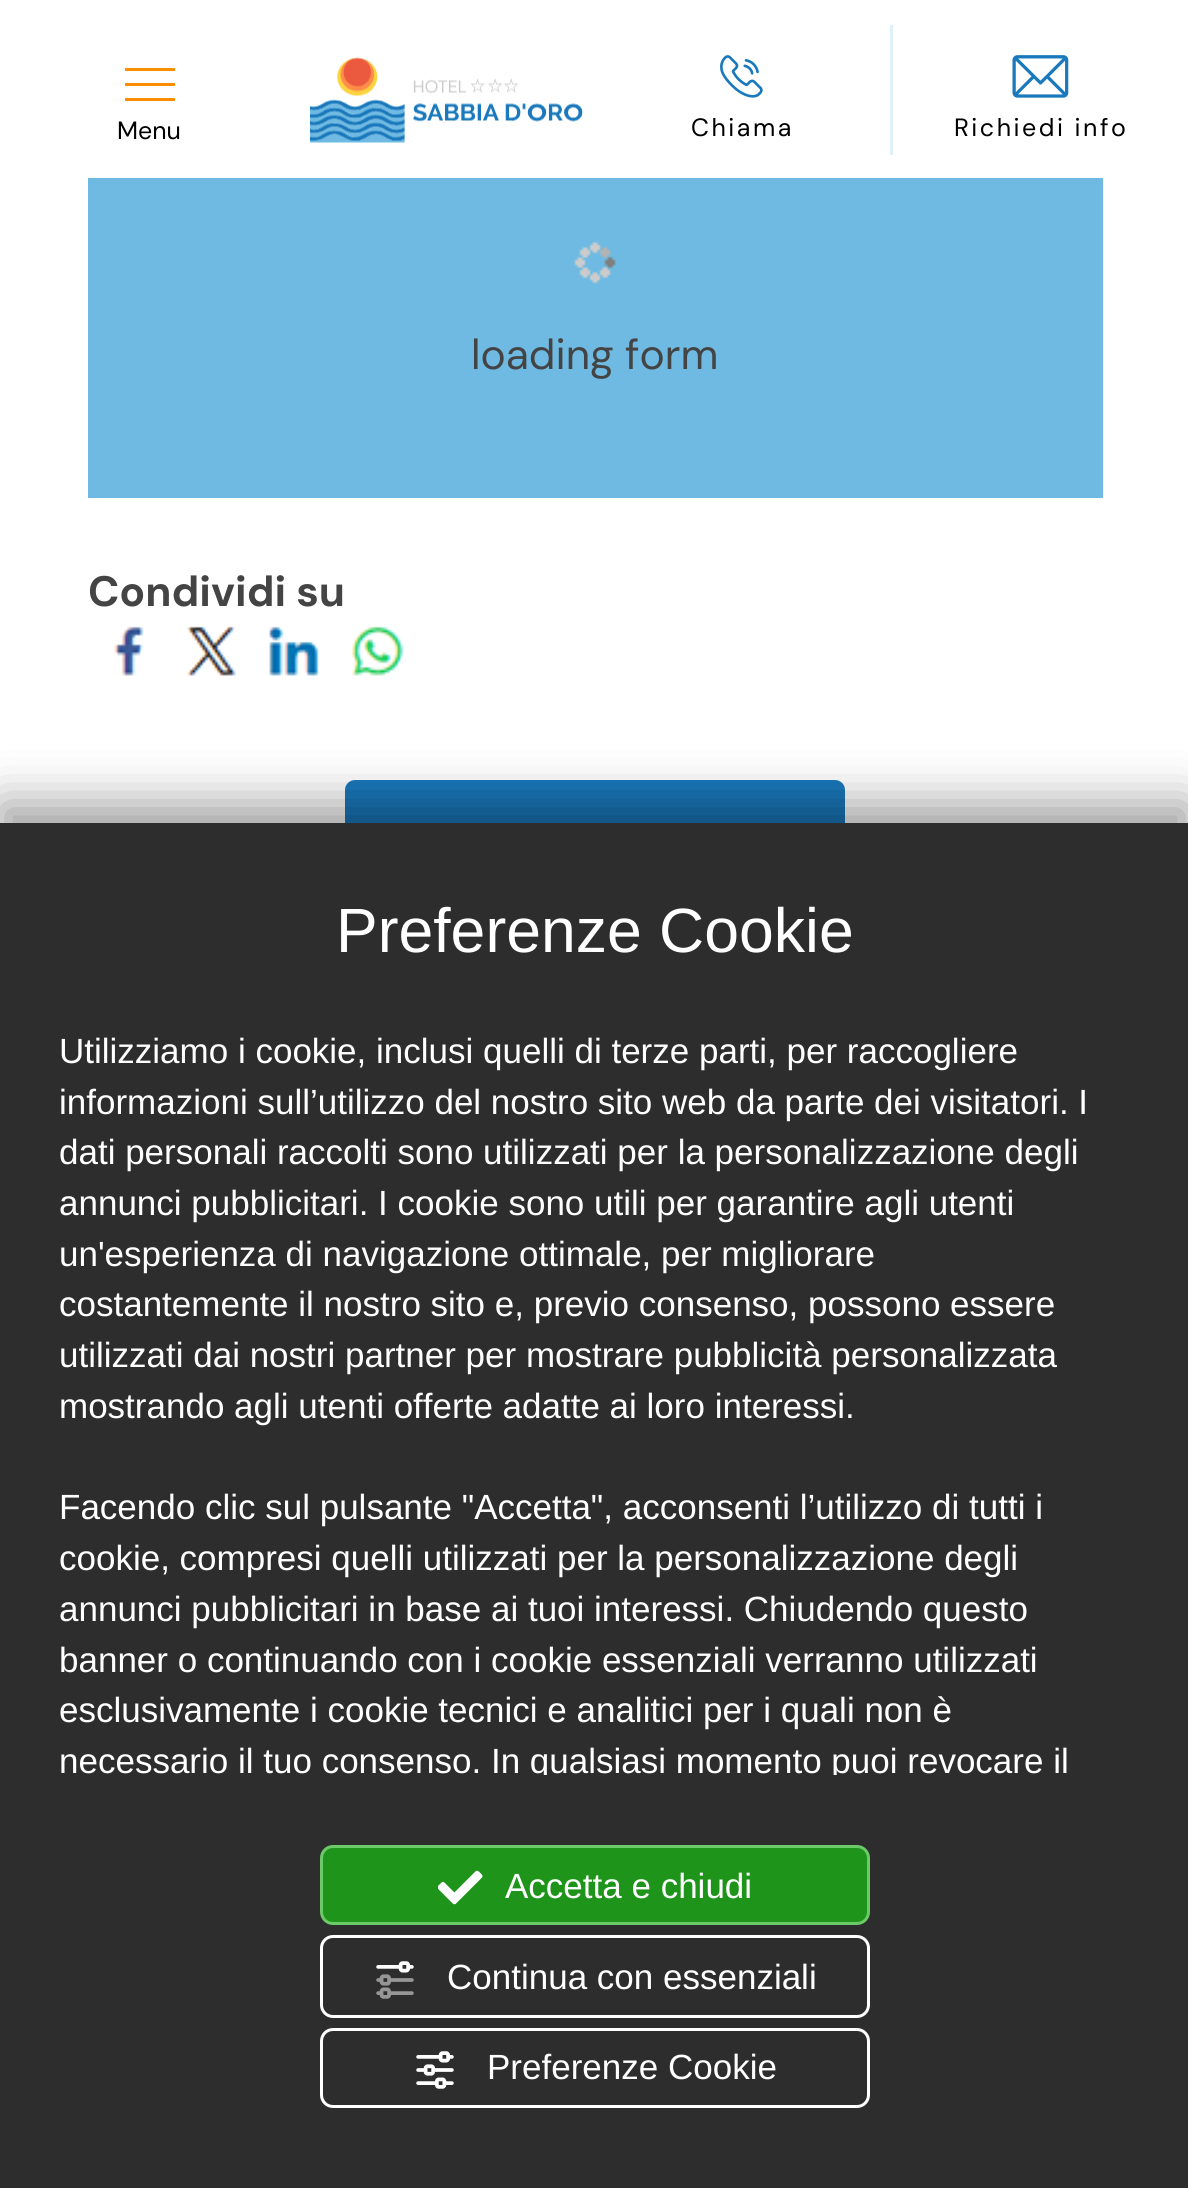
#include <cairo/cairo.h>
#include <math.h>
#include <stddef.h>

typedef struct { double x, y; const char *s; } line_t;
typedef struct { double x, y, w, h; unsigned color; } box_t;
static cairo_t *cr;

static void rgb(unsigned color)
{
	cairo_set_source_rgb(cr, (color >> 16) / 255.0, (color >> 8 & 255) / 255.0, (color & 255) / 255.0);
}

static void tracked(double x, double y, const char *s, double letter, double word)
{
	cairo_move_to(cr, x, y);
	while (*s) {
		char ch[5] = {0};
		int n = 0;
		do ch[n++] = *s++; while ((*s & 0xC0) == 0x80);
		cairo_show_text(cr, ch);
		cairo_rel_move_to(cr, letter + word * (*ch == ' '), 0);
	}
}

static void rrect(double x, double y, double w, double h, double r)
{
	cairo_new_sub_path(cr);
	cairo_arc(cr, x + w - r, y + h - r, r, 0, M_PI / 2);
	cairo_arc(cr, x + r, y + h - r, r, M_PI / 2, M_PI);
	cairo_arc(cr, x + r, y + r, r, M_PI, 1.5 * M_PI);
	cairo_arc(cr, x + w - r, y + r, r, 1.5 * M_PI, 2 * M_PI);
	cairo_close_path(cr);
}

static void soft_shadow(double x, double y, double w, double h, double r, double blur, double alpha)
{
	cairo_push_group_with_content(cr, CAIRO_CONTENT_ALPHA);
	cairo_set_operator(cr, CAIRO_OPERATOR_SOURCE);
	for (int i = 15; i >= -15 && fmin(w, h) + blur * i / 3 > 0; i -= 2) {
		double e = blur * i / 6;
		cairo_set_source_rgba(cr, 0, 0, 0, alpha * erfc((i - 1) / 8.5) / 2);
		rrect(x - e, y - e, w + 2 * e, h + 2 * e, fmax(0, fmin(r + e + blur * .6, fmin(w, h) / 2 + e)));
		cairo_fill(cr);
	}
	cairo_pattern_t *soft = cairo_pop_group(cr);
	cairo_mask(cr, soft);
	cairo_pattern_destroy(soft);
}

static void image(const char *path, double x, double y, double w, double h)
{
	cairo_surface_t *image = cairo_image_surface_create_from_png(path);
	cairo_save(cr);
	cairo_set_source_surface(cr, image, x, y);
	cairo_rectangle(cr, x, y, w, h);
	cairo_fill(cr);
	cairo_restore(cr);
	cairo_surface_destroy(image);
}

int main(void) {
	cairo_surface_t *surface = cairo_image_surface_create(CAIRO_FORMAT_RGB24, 1188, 2188);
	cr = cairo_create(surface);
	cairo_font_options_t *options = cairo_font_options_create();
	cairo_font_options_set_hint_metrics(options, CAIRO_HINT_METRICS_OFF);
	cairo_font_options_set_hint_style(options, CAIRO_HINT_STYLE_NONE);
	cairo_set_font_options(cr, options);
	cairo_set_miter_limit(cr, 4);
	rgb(0xffffff);
	cairo_paint(cr);
	{
		static const box_t items[] = {
			{125, 68, 50, 3, 0xfa8f02},
			{125, 83, 50, 3, 0xfa8f02},
			{125, 98, 50, 3, 0xfa8f02},
		};
		for (size_t i = 0; i < sizeof items / sizeof *items; i++) {
			rgb(items[i].color);
			cairo_rectangle(cr, items[i].x, items[i].y, items[i].w, items[i].h);
			cairo_fill(cr);
		}
	}
	image("img/1.png", 310, 57, 273, 86);
	rgb(0xdff0f9);
	cairo_rectangle(cr, 890, 25, 3, 130);
	cairo_fill(cr);
	image("img/2.png", 720, 55, 43, 43);
	image("img/3.png", 1012, 55, 57, 43);
	rgb(0x6fbae2);
	cairo_rectangle(cr, 88, 178, 1015, 320);
	cairo_fill(cr);
	image("img/4.png", 574, 241, 42, 43);
	image("img/5.png", 114, 626, 30, 50);
	image("img/6.png", 187, 626, 49, 50);
	image("img/7.png", 269, 626, 50, 50);
	image("img/8.png", 351, 626, 53, 50);
	rgb(0x1979bc);
	rrect(345, 780, 500, 118, 10);
	cairo_fill(cr);
	rgb(0x000000);
	soft_shadow(0, 803, 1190, 1367, 0, 25, 0.38);
	rgb(0x2d2d2d);
	cairo_rectangle(cr, 0, 823, 1188, 1365);
	cairo_fill(cr);
	rgb(0x1e941a);
	rrect(321.5, 1846.5, 547, 77, 11.5);
	cairo_fill_preserve(cr);
	rgb(0x6cca69);
	cairo_set_line_width(cr, 3);
	cairo_stroke(cr);
	image("img/9.png", 438, 1870, 45, 35);
	rrect(321.5, 1936.5, 547, 80, 11.5);
	rgb(0xffffff);
	cairo_stroke(cr);
	image("img/10.png", 376, 1961, 38, 38);
	rrect(321.5, 2029.5, 547, 77, 11.5);
	cairo_stroke(cr);
	image("img/11.png", 416, 2051, 38, 38);
	cairo_select_font_face(cr, "DM Sans", CAIRO_FONT_SLANT_NORMAL, CAIRO_FONT_WEIGHT_NORMAL);
	cairo_set_font_size(cr, 25);
	rgb(0x000000);
	cairo_move_to(cr, 117, 139);
	cairo_show_text(cr, "Menu");
	tracked(691, 136, "Chiama", 2.5, 0);
	tracked(954, 136, "Richiedi info", 2.5, 0);
	cairo_set_font_size(cr, 42.5);
	rgb(0x444444);
	cairo_move_to(cr, 471, 369);
	cairo_show_text(cr, "loading form");
	cairo_select_font_face(cr, "DM Sans", CAIRO_FONT_SLANT_NORMAL, CAIRO_FONT_WEIGHT_BOLD);
	cairo_move_to(cr, 88, 606);
	cairo_show_text(cr, "Condividi su");
	cairo_select_font_face(cr, "Liberation Sans", CAIRO_FONT_SLANT_NORMAL, CAIRO_FONT_WEIGHT_NORMAL);
	cairo_set_font_size(cr, 62.5);
	rgb(0xffffff);
	cairo_move_to(cr, 336, 952);
	cairo_show_text(cr, "Preferenze Cookie");
	cairo_set_font_size(cr, 35);
	{
		static const line_t items[] = {
			{59, 1063, "Utilizziamo i cookie, inclusi quelli di terze parti, per raccogliere"},
			{59, 1114, "informazioni sull’utilizzo del nostro sito web da parte dei visitatori. I"},
			{59, 1164, "dati personali raccolti sono utilizzati per la personalizzazione degli"},
			{59, 1215, "annunci pubblicitari. I cookie sono utili per garantire agli utenti"},
			{59, 1266, "un'esperienza di navigazione ottimale, per migliorare"},
			{59, 1316, "costantemente il nostro sito e, previo consenso, possono essere"},
			{59, 1367, "utilizzati dai nostri partner per mostrare pubblicità personalizzata"},
			{59, 1418, "mostrando agli utenti offerte adatte ai loro interessi."},
			{59, 1519, "Facendo clic sul pulsante \"Accetta\", acconsenti l’utilizzo di tutti i"},
			{59, 1570, "cookie, compresi quelli utilizzati per la personalizzazione degli"},
			{59, 1621, "annunci pubblicitari in base ai tuoi interessi. Chiudendo questo"},
			{59, 1672, "banner o continuando con i cookie essenziali verranno utilizzati"},
			{59, 1722, "esclusivamente i cookie tecnici e analitici per i quali non è"},
		};
		for (size_t i = 0; i < sizeof items / sizeof *items; i++) {
			cairo_move_to(cr, items[i].x, items[i].y);
			cairo_show_text(cr, items[i].s);
		}
	}
	cairo_save(cr);
	cairo_rectangle(cr, 60, 1025, 1070, 750);
	cairo_clip(cr);
	cairo_move_to(cr, 59, 1773);
	cairo_show_text(cr, "necessario il tuo consenso. In qualsiasi momento puoi revocare il");
	cairo_restore(cr);
	{
		static const line_t items[] = {
			{505, 1898, "Accetta e chiudi"},
			{447, 1989, "Continua con essenziali"},
			{487, 2079, "Preferenze Cookie"},
		};
		for (size_t i = 0; i < sizeof items / sizeof *items; i++) {
			cairo_move_to(cr, items[i].x, items[i].y);
			cairo_show_text(cr, items[i].s);
		}
	}
	cairo_surface_write_to_png(surface, "page.png");
	cairo_font_options_destroy(options);
	cairo_destroy(cr);
	cairo_surface_destroy(surface);
	return 0;
}
